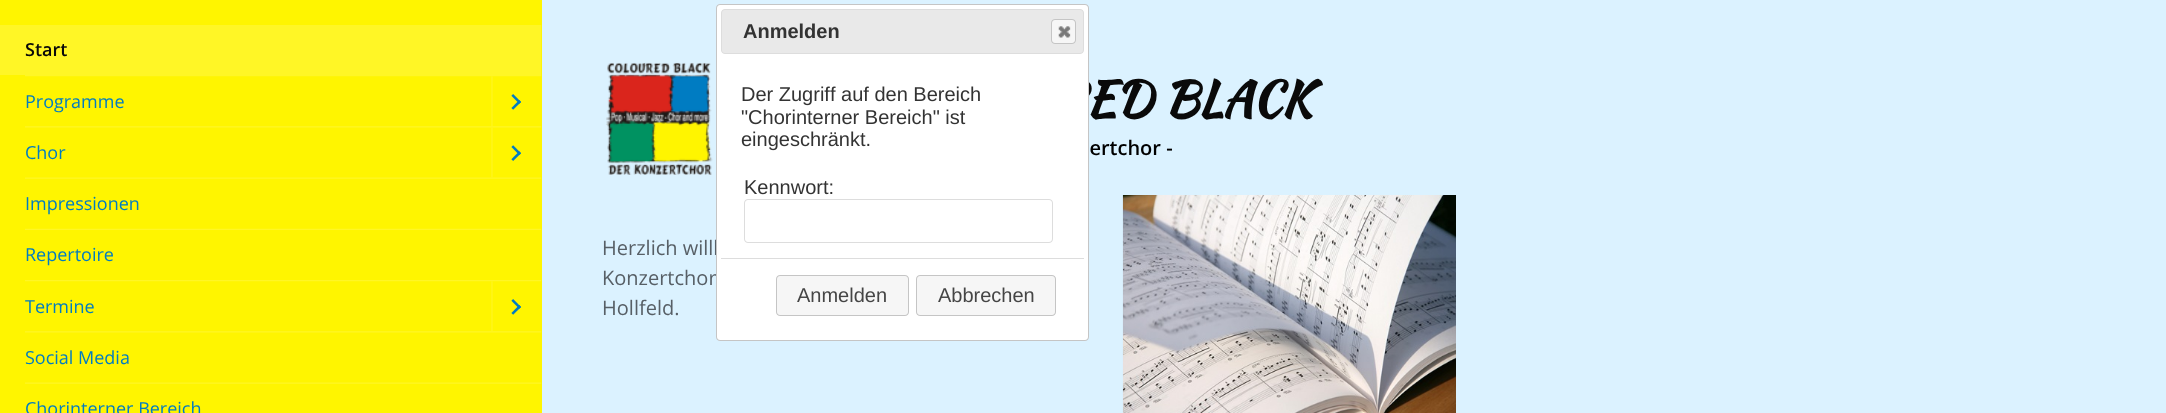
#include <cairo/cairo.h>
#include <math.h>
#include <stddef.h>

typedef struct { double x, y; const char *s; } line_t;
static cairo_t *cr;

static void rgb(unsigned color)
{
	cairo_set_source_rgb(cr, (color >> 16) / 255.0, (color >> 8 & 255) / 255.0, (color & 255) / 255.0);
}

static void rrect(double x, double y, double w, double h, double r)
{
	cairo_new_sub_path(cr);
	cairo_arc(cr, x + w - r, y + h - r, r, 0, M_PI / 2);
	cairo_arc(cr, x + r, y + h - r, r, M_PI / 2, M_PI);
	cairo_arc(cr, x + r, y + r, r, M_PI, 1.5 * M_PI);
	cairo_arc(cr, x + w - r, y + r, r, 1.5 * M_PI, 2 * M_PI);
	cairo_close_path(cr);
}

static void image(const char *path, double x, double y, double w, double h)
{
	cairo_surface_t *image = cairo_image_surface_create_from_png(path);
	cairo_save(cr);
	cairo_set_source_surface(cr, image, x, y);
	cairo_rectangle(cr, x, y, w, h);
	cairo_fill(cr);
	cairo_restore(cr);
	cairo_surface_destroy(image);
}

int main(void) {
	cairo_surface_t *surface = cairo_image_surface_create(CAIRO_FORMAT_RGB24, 2166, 413);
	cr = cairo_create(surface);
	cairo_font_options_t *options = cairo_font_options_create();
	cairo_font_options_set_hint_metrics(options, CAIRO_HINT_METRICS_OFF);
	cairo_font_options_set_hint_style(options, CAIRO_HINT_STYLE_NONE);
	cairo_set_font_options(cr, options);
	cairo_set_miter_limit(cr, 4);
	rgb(0xffffff);
	cairo_paint(cr);
	image("img/1.png", 0, 0, 2166, 413);
	rgb(0xffffff);
	rrect(716.5, 4.5, 372, 336, 3.5);
	cairo_fill_preserve(cr);
	rgb(0xc5c5c5);
	cairo_set_line_width(cr, 1);
	cairo_stroke(cr);
	rgb(0xe9e9e9);
	rrect(721.5, 9.5, 362, 44, 3.5);
	cairo_fill_preserve(cr);
	rgb(0xdddddd);
	cairo_stroke(cr);
	rgb(0xf6f6f6);
	rrect(1051.5, 19.5, 24, 24, 3.5);
	cairo_fill_preserve(cr);
	rgb(0xc5c5c5);
	cairo_stroke(cr);
	image("img/2.png", 1058, 26, 13, 12);
	rrect(744.5, 199.5, 308, 43, 3.5);
	rgb(0xdddddd);
	cairo_stroke(cr);
	cairo_rectangle(cr, 721, 258, 363, 1);
	cairo_fill(cr);
	rgb(0xf6f6f6);
	rrect(776.5, 275.5, 132, 40, 3.5);
	cairo_fill_preserve(cr);
	rgb(0xc5c5c5);
	cairo_stroke(cr);
	rgb(0xf6f6f6);
	rrect(916.5, 275.5, 139, 40, 3.5);
	cairo_fill_preserve(cr);
	rgb(0xc5c5c5);
	cairo_stroke(cr);
	cairo_select_font_face(cr, "Liberation Sans", CAIRO_FONT_SLANT_NORMAL, CAIRO_FONT_WEIGHT_BOLD);
	cairo_set_font_size(cr, 20);
	rgb(0x333333);
	cairo_move_to(cr, 743, 38);
	cairo_show_text(cr, "Anmelden");
	cairo_select_font_face(cr, "Liberation Sans", CAIRO_FONT_SLANT_NORMAL, CAIRO_FONT_WEIGHT_NORMAL);
	{
		static const line_t items[] = {
			{741, 101, "Der Zugriff auf den Bereich"},
			{741, 124, "\"Chorinterner Bereich\" ist"},
			{741, 146, "eingeschränkt."},
			{744, 194, "Kennwort:"},
		};
		for (size_t i = 0; i < sizeof items / sizeof *items; i++) {
			cairo_move_to(cr, items[i].x, items[i].y);
			cairo_show_text(cr, items[i].s);
		}
	}
	rgb(0x454545);
	cairo_move_to(cr, 797, 302);
	cairo_show_text(cr, "Anmelden");
	cairo_move_to(cr, 938, 302);
	cairo_show_text(cr, "Abbrechen");
	cairo_surface_write_to_png(surface, "page.png");
	cairo_font_options_destroy(options);
	cairo_destroy(cr);
	cairo_surface_destroy(surface);
	return 0;
}
